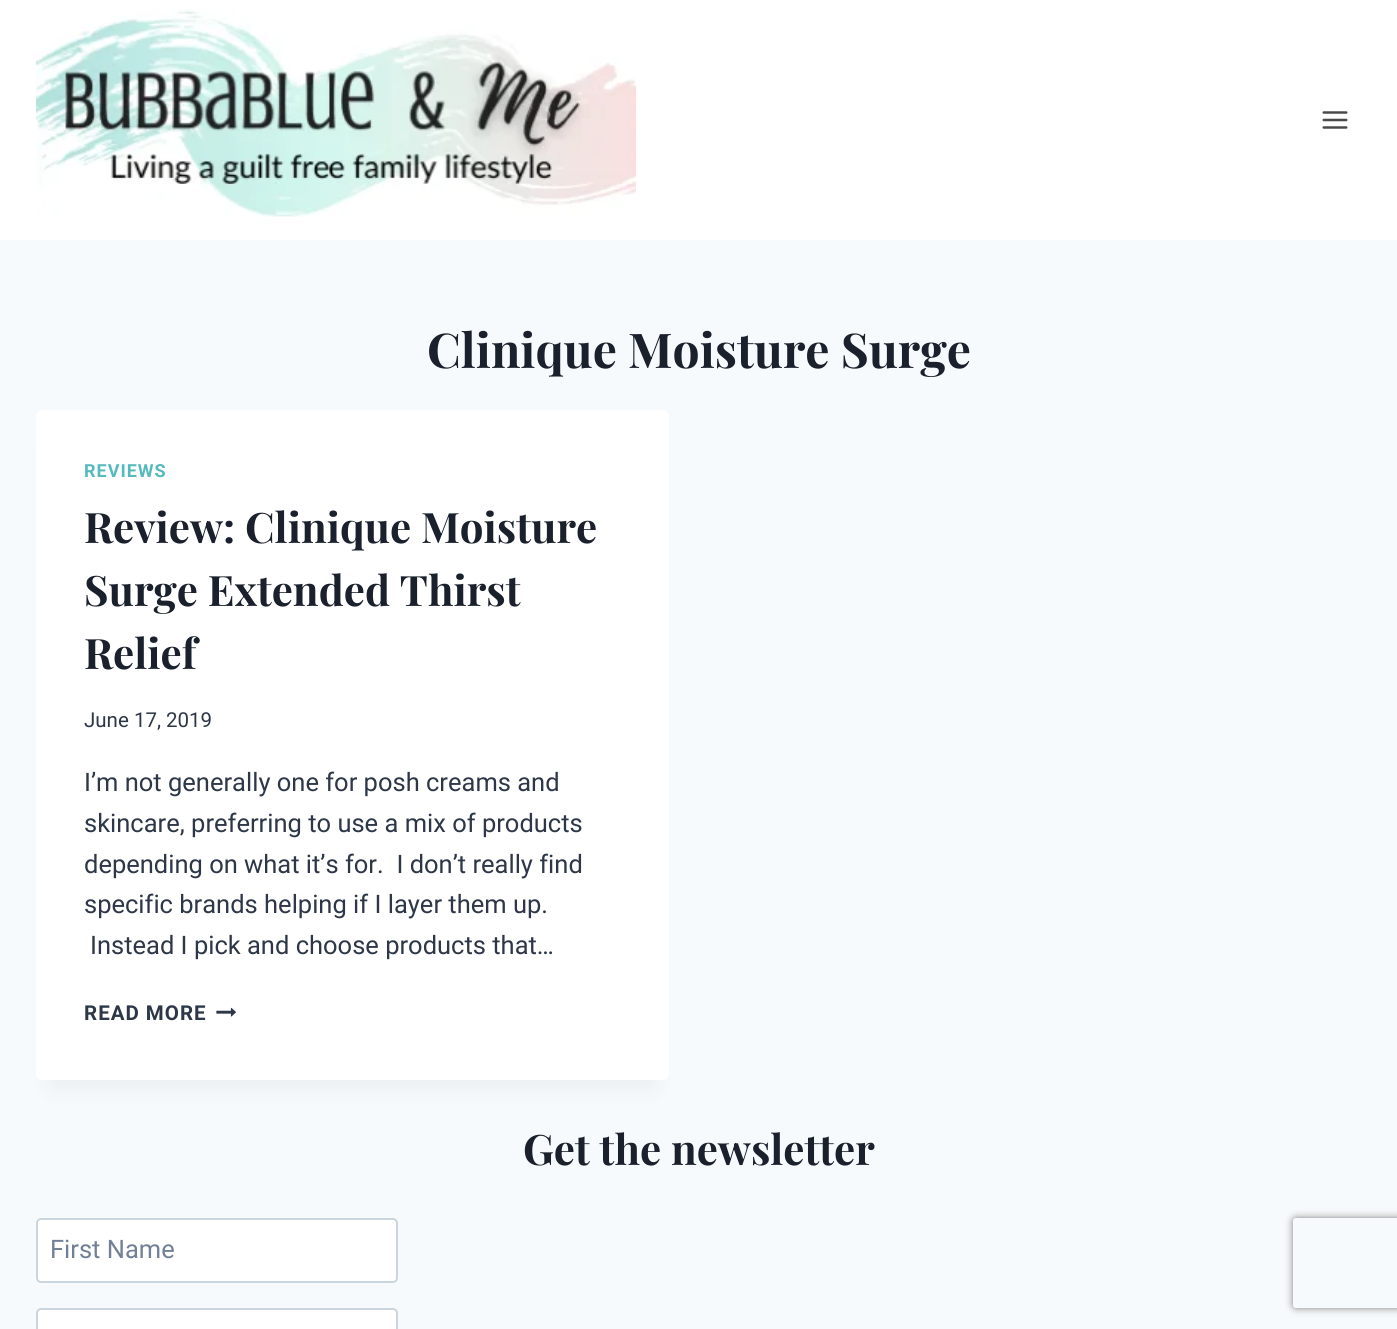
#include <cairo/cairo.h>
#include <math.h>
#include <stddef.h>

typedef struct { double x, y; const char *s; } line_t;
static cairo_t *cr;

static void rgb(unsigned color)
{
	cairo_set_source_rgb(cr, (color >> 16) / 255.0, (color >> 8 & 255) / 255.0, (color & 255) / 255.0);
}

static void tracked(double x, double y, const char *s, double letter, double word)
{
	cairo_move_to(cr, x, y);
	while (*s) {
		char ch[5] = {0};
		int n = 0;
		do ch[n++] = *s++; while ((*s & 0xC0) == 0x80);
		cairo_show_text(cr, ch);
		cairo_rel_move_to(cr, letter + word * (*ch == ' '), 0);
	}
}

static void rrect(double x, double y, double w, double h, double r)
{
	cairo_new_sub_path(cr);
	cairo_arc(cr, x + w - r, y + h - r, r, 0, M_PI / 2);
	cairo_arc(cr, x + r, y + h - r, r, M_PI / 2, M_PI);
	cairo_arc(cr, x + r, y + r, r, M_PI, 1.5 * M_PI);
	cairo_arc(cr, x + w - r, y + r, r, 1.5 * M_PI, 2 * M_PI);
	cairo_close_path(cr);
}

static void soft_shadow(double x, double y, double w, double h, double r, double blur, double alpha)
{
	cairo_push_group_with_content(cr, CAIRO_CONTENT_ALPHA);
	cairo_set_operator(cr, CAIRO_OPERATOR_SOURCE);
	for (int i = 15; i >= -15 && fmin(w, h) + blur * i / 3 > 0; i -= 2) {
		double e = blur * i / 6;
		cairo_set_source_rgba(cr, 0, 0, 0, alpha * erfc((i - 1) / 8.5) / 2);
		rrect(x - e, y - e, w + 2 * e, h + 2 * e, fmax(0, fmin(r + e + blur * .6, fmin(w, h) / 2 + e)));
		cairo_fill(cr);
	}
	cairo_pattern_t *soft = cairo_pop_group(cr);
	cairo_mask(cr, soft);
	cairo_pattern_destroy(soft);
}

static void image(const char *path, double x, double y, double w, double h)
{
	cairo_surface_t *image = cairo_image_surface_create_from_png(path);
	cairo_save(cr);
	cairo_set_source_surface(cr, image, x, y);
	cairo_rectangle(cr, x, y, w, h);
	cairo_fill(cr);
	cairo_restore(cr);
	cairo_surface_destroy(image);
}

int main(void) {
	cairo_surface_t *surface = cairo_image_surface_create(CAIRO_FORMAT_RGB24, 1397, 1329);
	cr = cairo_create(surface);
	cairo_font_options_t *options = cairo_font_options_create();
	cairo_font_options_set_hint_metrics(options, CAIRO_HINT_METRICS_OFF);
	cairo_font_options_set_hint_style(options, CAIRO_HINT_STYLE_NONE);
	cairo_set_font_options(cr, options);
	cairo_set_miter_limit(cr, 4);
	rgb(0xf7fafc);
	cairo_paint(cr);
	rgb(0xffffff);
	cairo_rectangle(cr, 0, 0, 1397, 240);
	cairo_fill(cr);
	image("img/1.png", 36, 9, 600, 208);
	image("img/2.png", 1322, 111, 26, 18);
	rgb(0x000000);
	soft_shadow(51, 447, 603, 641, 0, 11, 0.05);
	rgb(0xffffff);
	rrect(36, 410, 633, 670, 6);
	cairo_fill(cr);
	image("img/3.png", 216, 1007, 20, 10);
	rrect(37, 1219, 360, 63, 4);
	cairo_fill_preserve(cr);
	rgb(0xcbd5e0);
	cairo_stroke(cr);
	rgb(0xffffff);
	rrect(37, 1309, 360, 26, 4);
	cairo_fill_preserve(cr);
	rgb(0xcbd5e0);
	cairo_stroke(cr);
	cairo_save(cr);
	cairo_set_fill_rule(cr, CAIRO_FILL_RULE_EVEN_ODD);
	cairo_new_path(cr);
	cairo_move_to(cr, 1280, 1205);
	cairo_line_to(cr, 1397, 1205);
	cairo_line_to(cr, 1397, 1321);
	cairo_line_to(cr, 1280, 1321);
	cairo_close_path(cr);
	cairo_move_to(cr, 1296, 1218);
	cairo_line_to(cr, 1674, 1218);
	cairo_curve_to(cr, 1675.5, 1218, 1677, 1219.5, 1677, 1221);
	cairo_line_to(cr, 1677, 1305);
	cairo_curve_to(cr, 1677, 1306.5, 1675.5, 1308, 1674, 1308);
	cairo_line_to(cr, 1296, 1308);
	cairo_curve_to(cr, 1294.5, 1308, 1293, 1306.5, 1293, 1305);
	cairo_line_to(cr, 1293, 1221);
	cairo_curve_to(cr, 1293, 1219.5, 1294.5, 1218, 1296, 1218);
	cairo_close_path(cr);
	cairo_clip(cr);
	rgb(0x808080);
	soft_shadow(1293, 1218, 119, 90, 3, 4, 1);
	cairo_restore(cr);
	cairo_select_font_face(cr, "Playfair Display", CAIRO_FONT_SLANT_NORMAL, CAIRO_FONT_WEIGHT_BOLD);
	cairo_set_font_size(cr, 48);
	rgb(0x1a202c);
	cairo_move_to(cr, 427, 368);
	cairo_show_text(cr, "Clinique Moisture Surge");
	cairo_select_font_face(cr, "Roboto", CAIRO_FONT_SLANT_NORMAL, CAIRO_FONT_WEIGHT_BOLD);
	cairo_set_font_size(cr, 18);
	rgb(0x55babe);
	tracked(84, 477, "REVIEWS", 1, 0);
	cairo_select_font_face(cr, "Playfair Display", CAIRO_FONT_SLANT_NORMAL, CAIRO_FONT_WEIGHT_BOLD);
	cairo_set_font_size(cr, 42);
	rgb(0x1a202c);
	{
		static const line_t items[] = {
			{84, 543, "Review: Clinique Moisture"},
			{84, 606, "Surge Extended Thirst"},
			{84, 669, "Relief"},
		};
		for (size_t i = 0; i < sizeof items / sizeof *items; i++) {
			cairo_move_to(cr, items[i].x, items[i].y);
			cairo_show_text(cr, items[i].s);
		}
	}
	cairo_select_font_face(cr, "Roboto", CAIRO_FONT_SLANT_NORMAL, CAIRO_FONT_WEIGHT_NORMAL);
	cairo_set_font_size(cr, 20.5);
	rgb(0x2d3748);
	cairo_move_to(cr, 84, 727);
	cairo_show_text(cr, "June 17, 2019");
	cairo_set_font_size(cr, 25.5);
	{
		static const line_t items[] = {
			{84, 791, "I’m not generally one for posh creams and"},
			{84, 832, "skincare, preferring to use a mix of products"},
			{84, 873, "depending on what it’s for.  I don’t really find"},
			{84, 913, "specific brands helping if I layer them up."},
			{90, 954, "Instead I pick and choose products that…"},
		};
		for (size_t i = 0; i < sizeof items / sizeof *items; i++) {
			cairo_move_to(cr, items[i].x, items[i].y);
			cairo_show_text(cr, items[i].s);
		}
	}
	cairo_select_font_face(cr, "Roboto", CAIRO_FONT_SLANT_NORMAL, CAIRO_FONT_WEIGHT_BOLD);
	cairo_set_font_size(cr, 20.5);
	tracked(84, 1020, "READ MORE", 1, 0);
	cairo_select_font_face(cr, "Playfair Display", CAIRO_FONT_SLANT_NORMAL, CAIRO_FONT_WEIGHT_BOLD);
	cairo_set_font_size(cr, 42);
	rgb(0x1a202c);
	cairo_move_to(cr, 523, 1165);
	cairo_show_text(cr, "Get the newsletter");
	cairo_select_font_face(cr, "Roboto", CAIRO_FONT_SLANT_NORMAL, CAIRO_FONT_WEIGHT_NORMAL);
	cairo_set_font_size(cr, 25.5);
	rgb(0x718096);
	cairo_move_to(cr, 50, 1258);
	cairo_show_text(cr, "First Name");
	cairo_surface_write_to_png(surface, "page.png");
	cairo_font_options_destroy(options);
	cairo_destroy(cr);
	cairo_surface_destroy(surface);
	return 0;
}
